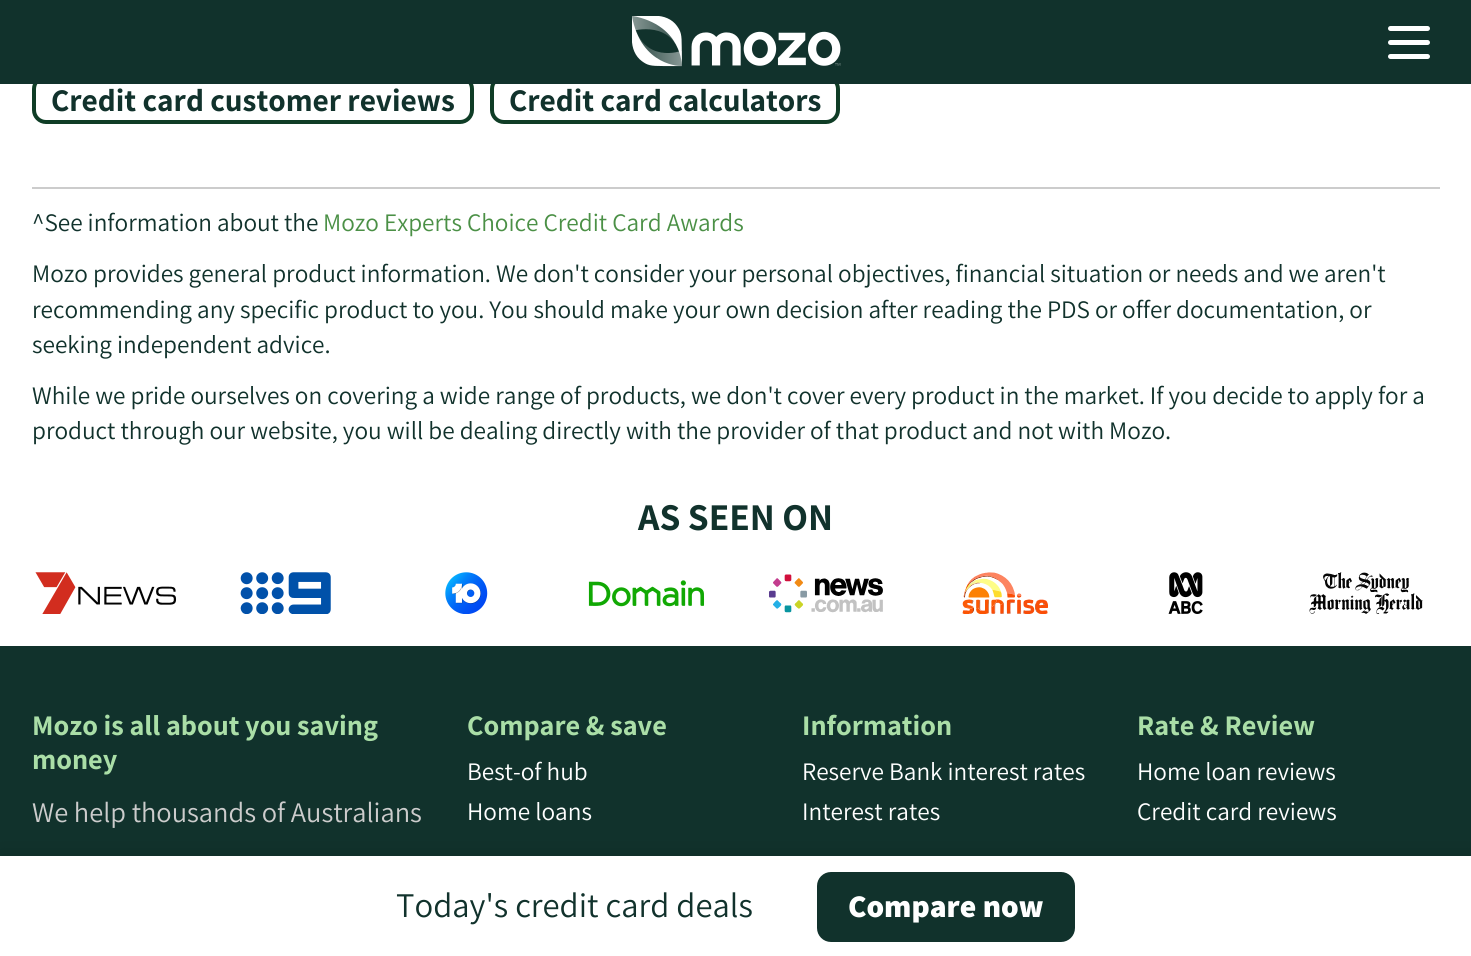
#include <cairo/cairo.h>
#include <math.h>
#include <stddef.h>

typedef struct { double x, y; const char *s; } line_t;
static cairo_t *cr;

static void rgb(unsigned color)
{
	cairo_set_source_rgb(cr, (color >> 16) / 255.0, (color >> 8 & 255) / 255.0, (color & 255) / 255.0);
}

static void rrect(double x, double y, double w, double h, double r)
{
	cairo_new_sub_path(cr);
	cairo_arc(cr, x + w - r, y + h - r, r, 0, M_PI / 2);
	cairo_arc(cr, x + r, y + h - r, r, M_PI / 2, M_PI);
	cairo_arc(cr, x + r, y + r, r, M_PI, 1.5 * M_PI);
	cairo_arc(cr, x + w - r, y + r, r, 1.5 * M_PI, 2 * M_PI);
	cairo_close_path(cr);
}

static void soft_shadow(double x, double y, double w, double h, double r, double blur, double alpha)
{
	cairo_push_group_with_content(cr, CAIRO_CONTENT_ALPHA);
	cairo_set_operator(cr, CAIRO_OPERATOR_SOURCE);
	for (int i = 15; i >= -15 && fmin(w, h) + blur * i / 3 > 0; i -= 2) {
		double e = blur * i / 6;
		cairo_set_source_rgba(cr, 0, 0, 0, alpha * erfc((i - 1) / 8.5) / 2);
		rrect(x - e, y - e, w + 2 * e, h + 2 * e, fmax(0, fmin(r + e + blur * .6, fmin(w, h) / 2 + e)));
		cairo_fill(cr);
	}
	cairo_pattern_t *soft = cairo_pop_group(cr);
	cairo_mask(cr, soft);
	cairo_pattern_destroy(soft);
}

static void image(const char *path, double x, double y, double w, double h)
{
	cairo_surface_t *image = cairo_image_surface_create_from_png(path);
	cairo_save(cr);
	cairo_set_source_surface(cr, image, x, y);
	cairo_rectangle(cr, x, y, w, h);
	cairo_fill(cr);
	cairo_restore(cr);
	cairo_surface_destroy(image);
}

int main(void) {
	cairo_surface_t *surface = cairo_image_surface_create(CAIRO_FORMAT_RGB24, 1471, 956);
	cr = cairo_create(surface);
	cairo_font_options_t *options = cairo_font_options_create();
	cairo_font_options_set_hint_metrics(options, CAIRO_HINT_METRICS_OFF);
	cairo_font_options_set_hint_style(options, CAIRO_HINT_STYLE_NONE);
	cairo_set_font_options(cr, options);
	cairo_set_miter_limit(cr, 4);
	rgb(0xffffff);
	cairo_paint(cr);
	rrect(34, 77, 438, 45, 12);
	rgb(0x0f3d26);
	cairo_set_line_width(cr, 4);
	cairo_stroke(cr);
	rrect(492, 77, 346, 45, 12);
	cairo_stroke(cr);
	rgb(0x11322c);
	cairo_rectangle(cr, 0, 0, 1471, 84);
	cairo_fill(cr);
	image("img/1.png", 632, 16, 209, 51);
	rgb(0xffffff);
	rrect(1388, 40, 42, 5, 2.5);
	cairo_fill(cr);
	rrect(1388, 26, 42, 5, 2.5);
	cairo_fill(cr);
	rrect(1388, 54, 42, 5, 2.5);
	cairo_fill(cr);
	rgb(0xcccccc);
	cairo_rectangle(cr, 32, 187, 1408, 2);
	cairo_fill(cr);
	image("img/2.png", 35, 572, 142, 42);
	image("img/3.png", 240, 572, 91, 42);
	image("img/4.png", 445, 572, 43, 42);
	image("img/5.png", 588, 580, 117, 27);
	image("img/6.png", 769, 574, 114, 39);
	image("img/7.png", 962, 572, 86, 42);
	image("img/8.png", 1168, 572, 35, 42);
	image("img/9.png", 1309, 572, 114, 42);
	rgb(0x11322c);
	cairo_rectangle(cr, 0, 646, 1471, 210);
	cairo_fill(cr);
	rgb(0x000000);
	soft_shadow(0, 852, 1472, 102, 0, 9, 0.1);
	rgb(0xffffff);
	cairo_rectangle(cr, 0, 856, 1471, 100);
	cairo_fill(cr);
	rgb(0x11322c);
	rrect(817, 872, 258, 70, 14);
	cairo_fill(cr);
	cairo_select_font_face(cr, "Assistant", CAIRO_FONT_SLANT_NORMAL, CAIRO_FONT_WEIGHT_BOLD);
	cairo_set_font_size(cr, 31.5);
	cairo_move_to(cr, 51, 111);
	cairo_show_text(cr, "Credit card customer reviews");
	cairo_move_to(cr, 509, 111);
	cairo_show_text(cr, "Credit card calculators");
	cairo_select_font_face(cr, "Assistant", CAIRO_FONT_SLANT_NORMAL, CAIRO_FONT_WEIGHT_NORMAL);
	cairo_set_font_size(cr, 25.2);
	cairo_move_to(cr, 32, 231);
	cairo_show_text(cr, "^See information about the");
	rgb(0x4b9046);
	cairo_move_to(cr, 323, 231);
	cairo_show_text(cr, "Mozo Experts Choice Credit Card Awards");
	rgb(0x11322c);
	{
		static const line_t items[] = {
			{32, 282, "Mozo provides general product information. We don't consider your personal objectives, financial situation or needs and we aren't"},
			{32, 318, "recommending any specific product to you. You should make your own decision after reading the PDS or offer documentation, or"},
			{32, 353, "seeking independent advice."},
			{32, 404, "While we pride ourselves on covering a wide range of products, we don't cover every product in the market. If you decide to apply for a"},
			{32, 439, "product through our website, you will be dealing directly with the provider of that product and not with Mozo."},
		};
		for (size_t i = 0; i < sizeof items / sizeof *items; i++) {
			cairo_move_to(cr, items[i].x, items[i].y);
			cairo_show_text(cr, items[i].s);
		}
	}
	cairo_select_font_face(cr, "Assistant", CAIRO_FONT_SLANT_NORMAL, CAIRO_FONT_WEIGHT_BOLD);
	cairo_set_font_size(cr, 37.75);
	cairo_move_to(cr, 638, 530);
	cairo_show_text(cr, "AS SEEN ON");
	cairo_set_font_size(cr, 28.4);
	rgb(0xaadea7);
	cairo_move_to(cr, 32, 735);
	cairo_show_text(cr, "Mozo is all about you saving");
	cairo_move_to(cr, 32, 769);
	cairo_show_text(cr, "money");
	cairo_select_font_face(cr, "Assistant", CAIRO_FONT_SLANT_NORMAL, CAIRO_FONT_WEIGHT_NORMAL);
	rgb(0xcccccc);
	cairo_move_to(cr, 32, 822);
	cairo_show_text(cr, "We help thousands of Australians");
	cairo_select_font_face(cr, "Assistant", CAIRO_FONT_SLANT_NORMAL, CAIRO_FONT_WEIGHT_BOLD);
	rgb(0xaadea7);
	cairo_move_to(cr, 467, 735);
	cairo_show_text(cr, "Compare & save");
	cairo_select_font_face(cr, "Assistant", CAIRO_FONT_SLANT_NORMAL, CAIRO_FONT_WEIGHT_NORMAL);
	cairo_set_font_size(cr, 25.2);
	rgb(0xffffff);
	cairo_move_to(cr, 467, 780);
	cairo_show_text(cr, "Best-of hub");
	cairo_move_to(cr, 467, 820);
	cairo_show_text(cr, "Home loans");
	cairo_select_font_face(cr, "Assistant", CAIRO_FONT_SLANT_NORMAL, CAIRO_FONT_WEIGHT_BOLD);
	cairo_set_font_size(cr, 28.4);
	rgb(0xaadea7);
	cairo_move_to(cr, 802, 735);
	cairo_show_text(cr, "Information");
	cairo_select_font_face(cr, "Assistant", CAIRO_FONT_SLANT_NORMAL, CAIRO_FONT_WEIGHT_NORMAL);
	cairo_set_font_size(cr, 25.2);
	rgb(0xffffff);
	cairo_move_to(cr, 802, 780);
	cairo_show_text(cr, "Reserve Bank interest rates");
	cairo_move_to(cr, 802, 820);
	cairo_show_text(cr, "Interest rates");
	cairo_select_font_face(cr, "Assistant", CAIRO_FONT_SLANT_NORMAL, CAIRO_FONT_WEIGHT_BOLD);
	cairo_set_font_size(cr, 28.4);
	rgb(0xaadea7);
	cairo_move_to(cr, 1137, 735);
	cairo_show_text(cr, "Rate & Review");
	cairo_select_font_face(cr, "Assistant", CAIRO_FONT_SLANT_NORMAL, CAIRO_FONT_WEIGHT_NORMAL);
	cairo_set_font_size(cr, 25.2);
	rgb(0xffffff);
	cairo_move_to(cr, 1137, 780);
	cairo_show_text(cr, "Home loan reviews");
	cairo_move_to(cr, 1137, 820);
	cairo_show_text(cr, "Credit card reviews");
	cairo_set_font_size(cr, 34.6);
	rgb(0x11322c);
	cairo_move_to(cr, 396, 917);
	cairo_show_text(cr, "Today's credit card deals");
	cairo_select_font_face(cr, "Assistant ExtraBold", CAIRO_FONT_SLANT_NORMAL, CAIRO_FONT_WEIGHT_NORMAL);
	cairo_set_font_size(cr, 31.5);
	rgb(0xffffff);
	cairo_move_to(cr, 848, 917);
	cairo_show_text(cr, "Compare now");
	cairo_surface_write_to_png(surface, "page.png");
	cairo_font_options_destroy(options);
	cairo_destroy(cr);
	cairo_surface_destroy(surface);
	return 0;
}
